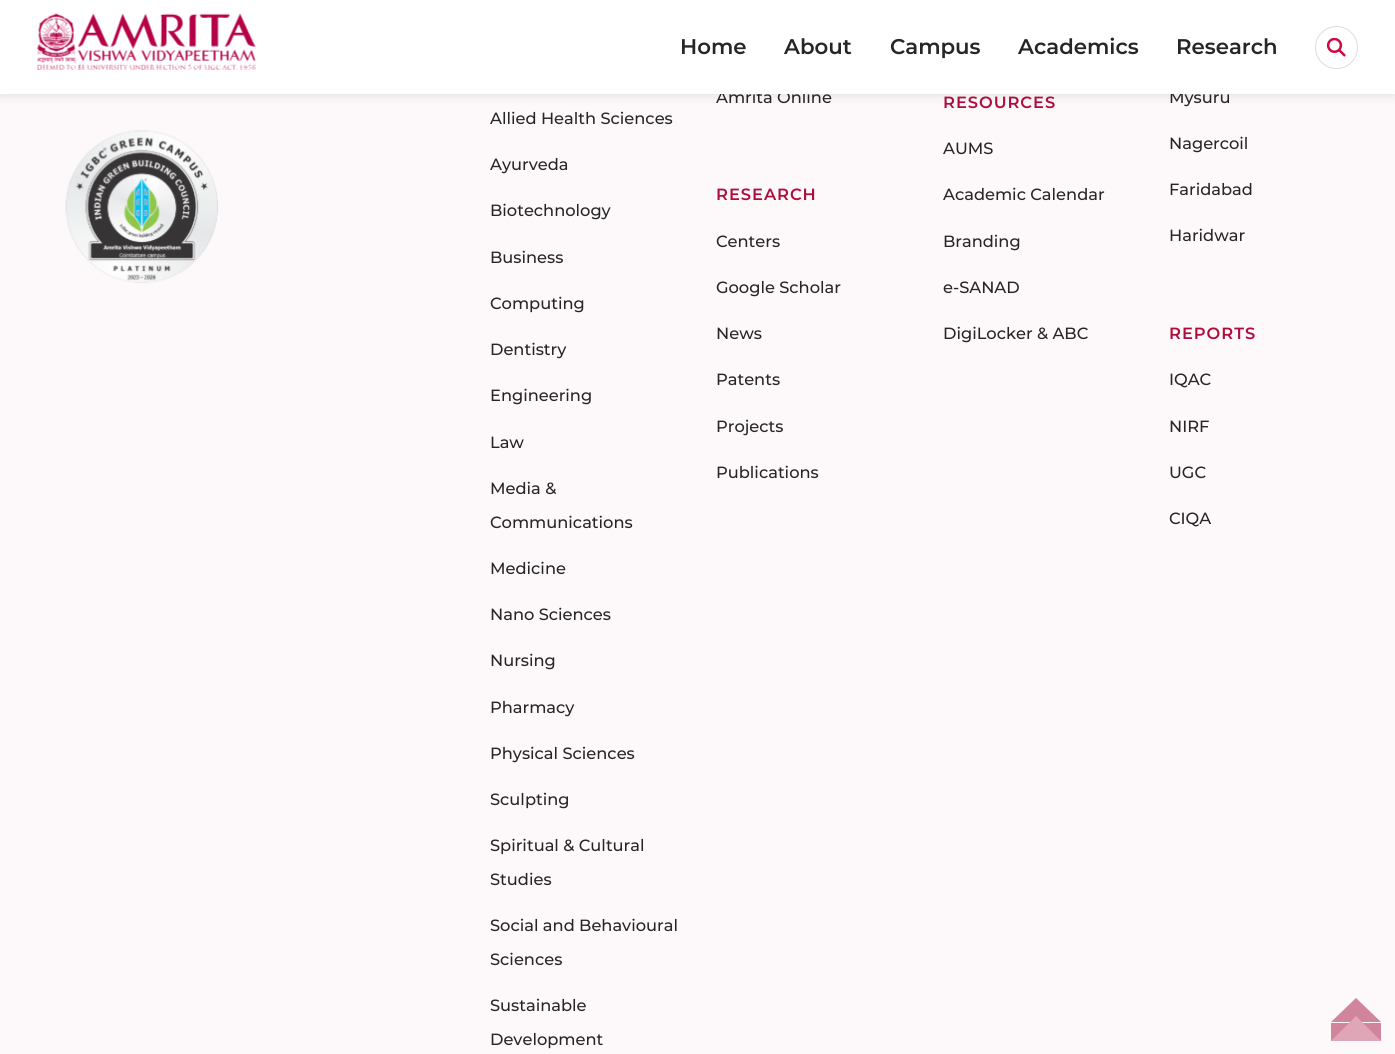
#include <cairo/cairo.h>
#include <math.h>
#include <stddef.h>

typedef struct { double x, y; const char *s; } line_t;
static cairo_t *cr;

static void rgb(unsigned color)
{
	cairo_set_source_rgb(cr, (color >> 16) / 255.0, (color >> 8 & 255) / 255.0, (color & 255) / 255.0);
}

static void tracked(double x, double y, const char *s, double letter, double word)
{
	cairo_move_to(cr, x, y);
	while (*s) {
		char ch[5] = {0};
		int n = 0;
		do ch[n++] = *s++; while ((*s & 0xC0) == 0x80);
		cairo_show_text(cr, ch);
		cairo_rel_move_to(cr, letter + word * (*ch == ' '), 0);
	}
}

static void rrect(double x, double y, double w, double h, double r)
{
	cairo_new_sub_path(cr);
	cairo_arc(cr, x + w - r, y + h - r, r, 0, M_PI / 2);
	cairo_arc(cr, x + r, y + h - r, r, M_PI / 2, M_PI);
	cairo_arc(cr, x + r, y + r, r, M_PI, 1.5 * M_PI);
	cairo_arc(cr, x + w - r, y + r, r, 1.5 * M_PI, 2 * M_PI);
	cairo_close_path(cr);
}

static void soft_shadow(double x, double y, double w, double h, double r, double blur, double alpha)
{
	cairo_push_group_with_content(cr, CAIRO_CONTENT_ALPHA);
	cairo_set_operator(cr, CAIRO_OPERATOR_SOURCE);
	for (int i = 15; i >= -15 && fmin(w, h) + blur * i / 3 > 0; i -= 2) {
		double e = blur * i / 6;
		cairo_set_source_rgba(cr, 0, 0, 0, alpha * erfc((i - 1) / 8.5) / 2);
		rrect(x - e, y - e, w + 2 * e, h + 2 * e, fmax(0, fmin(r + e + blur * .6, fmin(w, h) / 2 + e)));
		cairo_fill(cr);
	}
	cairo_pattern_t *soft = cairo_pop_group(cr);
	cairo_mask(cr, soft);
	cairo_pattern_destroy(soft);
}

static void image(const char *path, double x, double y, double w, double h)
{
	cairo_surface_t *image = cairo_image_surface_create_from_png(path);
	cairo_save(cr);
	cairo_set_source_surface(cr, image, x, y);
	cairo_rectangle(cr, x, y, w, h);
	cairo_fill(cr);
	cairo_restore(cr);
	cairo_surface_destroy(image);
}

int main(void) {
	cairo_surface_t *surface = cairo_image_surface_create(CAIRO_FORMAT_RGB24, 1395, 1054);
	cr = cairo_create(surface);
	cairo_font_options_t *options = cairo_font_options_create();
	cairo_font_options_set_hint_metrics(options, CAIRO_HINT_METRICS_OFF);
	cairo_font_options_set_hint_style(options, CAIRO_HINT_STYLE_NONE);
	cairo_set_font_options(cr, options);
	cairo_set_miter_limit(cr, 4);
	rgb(0xfdf8f9);
	cairo_paint(cr);
	rgb(0x000000);
	soft_shadow(0, 0, 1395, 94, 0, 6, 0.13);
	image("img/3.png", 65, 130, 153, 153);
	rgb(0xd1859c);
	cairo_rectangle(cr, 1331, 1023, 50, 18);
	cairo_fill(cr);
	cairo_new_path(cr);
	cairo_move_to(cr, 1381, 1022);
	cairo_line_to(cr, 1331, 1022);
	cairo_line_to(cr, 1356, 998);
	cairo_close_path(cr);
	cairo_fill(cr);
	rgb(0xe0a6b7);
	cairo_new_path(cr);
	cairo_move_to(cr, 1381, 1041);
	cairo_line_to(cr, 1331, 1041);
	cairo_line_to(cr, 1356, 1016);
	cairo_close_path(cr);
	cairo_fill(cr);
	cairo_select_font_face(cr, "Montserrat Medium", CAIRO_FONT_SLANT_NORMAL, CAIRO_FONT_WEIGHT_NORMAL);
	cairo_set_font_size(cr, 16.25);
	rgb(0x262626);
	{
		static const line_t items[] = {
			{490, 124, "Allied Health Sciences"},
			{490, 170, "Ayurveda"},
			{490, 216, "Biotechnology"},
			{490, 263, "Business"},
			{490, 309, "Computing"},
			{490, 355, "Dentistry"},
			{490, 401, "Engineering"},
			{490, 448, "Law"},
			{490, 494, "Media &"},
			{490, 528, "Communications"},
			{490, 574, "Medicine"},
			{490, 620, "Nano Sciences"},
			{490, 666, "Nursing"},
			{490, 713, "Pharmacy"},
			{490, 759, "Physical Sciences"},
			{490, 805, "Sculpting"},
			{490, 851, "Spiritual & Cultural"},
			{490, 885, "Studies"},
			{490, 931, "Social and Behavioural"},
			{490, 965, "Sciences"},
			{490, 1011, "Sustainable"},
			{490, 1045, "Development"},
			{716, 103, "Amrita Online"},
		};
		for (size_t i = 0; i < sizeof items / sizeof *items; i++) {
			cairo_move_to(cr, items[i].x, items[i].y);
			cairo_show_text(cr, items[i].s);
		}
	}
	cairo_select_font_face(cr, "Montserrat SemiBold", CAIRO_FONT_SLANT_NORMAL, CAIRO_FONT_WEIGHT_NORMAL);
	rgb(0xaf0c3e);
	tracked(716, 200, "RESEARCH", 1, 0);
	cairo_select_font_face(cr, "Montserrat Medium", CAIRO_FONT_SLANT_NORMAL, CAIRO_FONT_WEIGHT_NORMAL);
	rgb(0x262626);
	{
		static const line_t items[] = {
			{716, 247, "Centers"},
			{716, 293, "Google Scholar"},
			{716, 339, "News"},
			{716, 385, "Patents"},
			{716, 432, "Projects"},
			{716, 478, "Publications"},
		};
		for (size_t i = 0; i < sizeof items / sizeof *items; i++) {
			cairo_move_to(cr, items[i].x, items[i].y);
			cairo_show_text(cr, items[i].s);
		}
	}
	cairo_select_font_face(cr, "Montserrat SemiBold", CAIRO_FONT_SLANT_NORMAL, CAIRO_FONT_WEIGHT_NORMAL);
	rgb(0xaf0c3e);
	tracked(943, 108, "RESOURCES", 1, 0);
	cairo_select_font_face(cr, "Montserrat Medium", CAIRO_FONT_SLANT_NORMAL, CAIRO_FONT_WEIGHT_NORMAL);
	rgb(0x262626);
	{
		static const line_t items[] = {
			{943, 154, "AUMS"},
			{943, 200, "Academic Calendar"},
			{943, 247, "Branding"},
			{943, 293, "e-SANAD"},
			{943, 339, "DigiLocker & ABC"},
			{1169, 103, "Mysuru"},
		};
		for (size_t i = 0; i < sizeof items / sizeof *items; i++) {
			cairo_move_to(cr, items[i].x, items[i].y);
			cairo_show_text(cr, items[i].s);
		}
	}
	rgb(0xffffff);
	cairo_rectangle(cr, 0, 0, 1395, 94);
	cairo_fill(cr);
	cairo_select_font_face(cr, "Montserrat SemiBold", CAIRO_FONT_SLANT_NORMAL, CAIRO_FONT_WEIGHT_NORMAL);
	cairo_set_font_size(cr, 21.25);
	rgb(0x262626);
	{
		static const line_t items[] = {
			{1176, 54, "Research"},
			{1018, 54, "Academics"},
			{890, 54, "Campus"},
			{784, 54, "About"},
			{680, 54, "Home"},
		};
		for (size_t i = 0; i < sizeof items / sizeof *items; i++) {
			cairo_move_to(cr, items[i].x, items[i].y);
			cairo_show_text(cr, items[i].s);
		}
	}
	image("img/2.png", 1326, 38, 20, 19);
	cairo_arc(cr, 1336.5, 47.5, 21, 0, 2 * M_PI);
	rgb(0xdddddd);
	cairo_set_line_width(cr, 1);
	cairo_stroke(cr);
	image("img/1.png", 37, 13, 219, 57);
	cairo_select_font_face(cr, "Montserrat Medium", CAIRO_FONT_SLANT_NORMAL, CAIRO_FONT_WEIGHT_NORMAL);
	cairo_set_font_size(cr, 16.25);
	rgb(0x262626);
	{
		static const line_t items[] = {
			{1169, 149, "Nagercoil"},
			{1169, 195, "Faridabad"},
			{1169, 241, "Haridwar"},
		};
		for (size_t i = 0; i < sizeof items / sizeof *items; i++) {
			cairo_move_to(cr, items[i].x, items[i].y);
			cairo_show_text(cr, items[i].s);
		}
	}
	cairo_select_font_face(cr, "Montserrat SemiBold", CAIRO_FONT_SLANT_NORMAL, CAIRO_FONT_WEIGHT_NORMAL);
	rgb(0xaf0c3e);
	tracked(1169, 339, "REPORTS", 1, 0);
	cairo_select_font_face(cr, "Montserrat Medium", CAIRO_FONT_SLANT_NORMAL, CAIRO_FONT_WEIGHT_NORMAL);
	rgb(0x262626);
	{
		static const line_t items[] = {
			{1169, 385, "IQAC"},
			{1169, 432, "NIRF"},
			{1169, 478, "UGC"},
			{1169, 524, "CIQA"},
		};
		for (size_t i = 0; i < sizeof items / sizeof *items; i++) {
			cairo_move_to(cr, items[i].x, items[i].y);
			cairo_show_text(cr, items[i].s);
		}
	}
	cairo_surface_write_to_png(surface, "page.png");
	cairo_font_options_destroy(options);
	cairo_destroy(cr);
	cairo_surface_destroy(surface);
	return 0;
}
